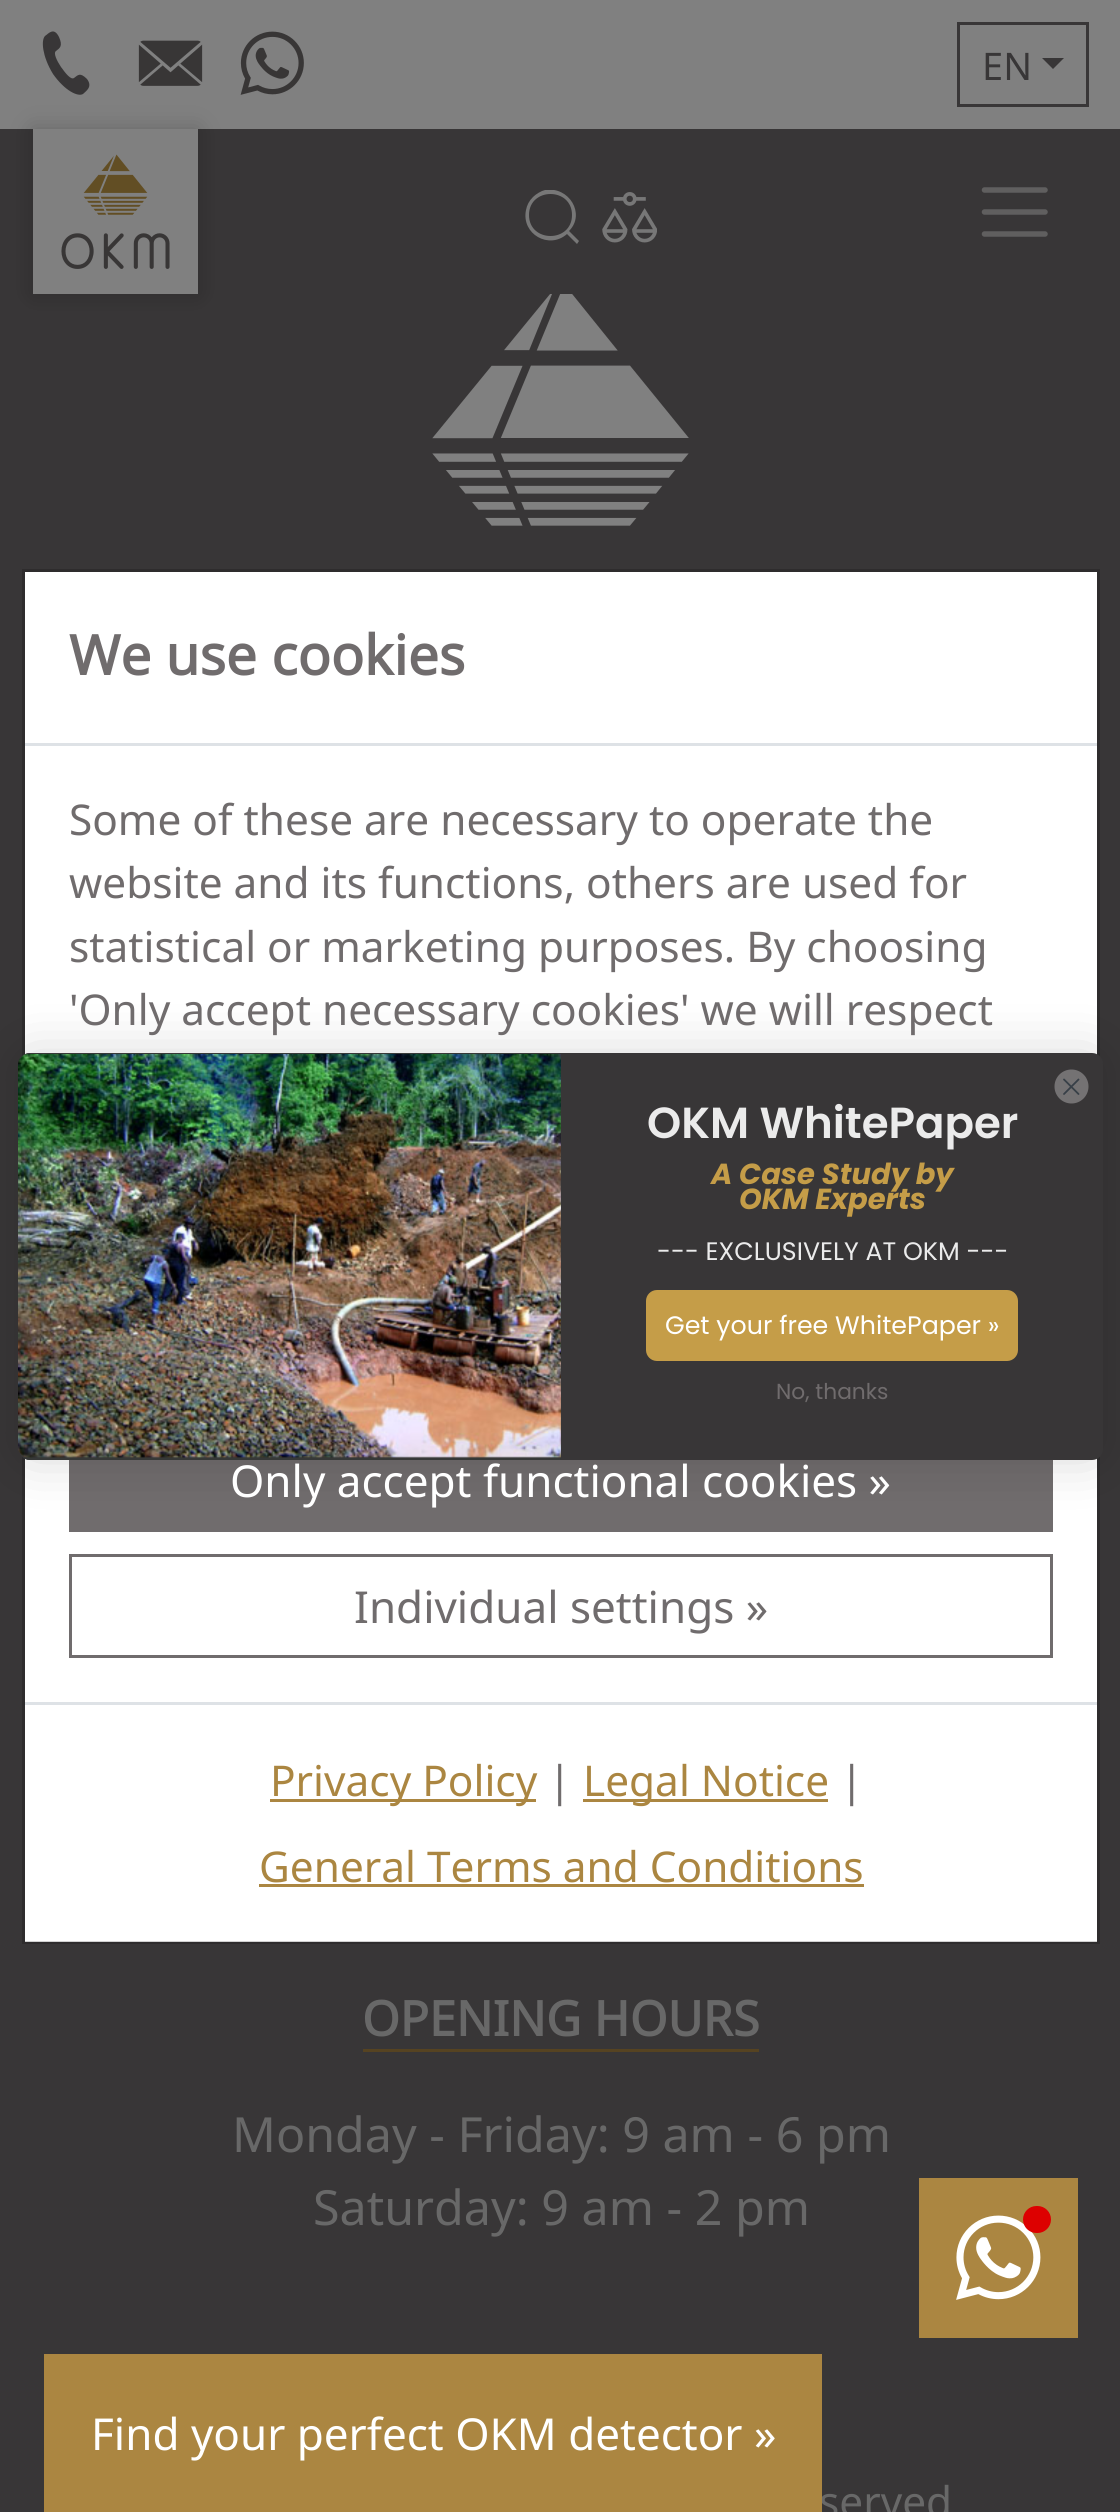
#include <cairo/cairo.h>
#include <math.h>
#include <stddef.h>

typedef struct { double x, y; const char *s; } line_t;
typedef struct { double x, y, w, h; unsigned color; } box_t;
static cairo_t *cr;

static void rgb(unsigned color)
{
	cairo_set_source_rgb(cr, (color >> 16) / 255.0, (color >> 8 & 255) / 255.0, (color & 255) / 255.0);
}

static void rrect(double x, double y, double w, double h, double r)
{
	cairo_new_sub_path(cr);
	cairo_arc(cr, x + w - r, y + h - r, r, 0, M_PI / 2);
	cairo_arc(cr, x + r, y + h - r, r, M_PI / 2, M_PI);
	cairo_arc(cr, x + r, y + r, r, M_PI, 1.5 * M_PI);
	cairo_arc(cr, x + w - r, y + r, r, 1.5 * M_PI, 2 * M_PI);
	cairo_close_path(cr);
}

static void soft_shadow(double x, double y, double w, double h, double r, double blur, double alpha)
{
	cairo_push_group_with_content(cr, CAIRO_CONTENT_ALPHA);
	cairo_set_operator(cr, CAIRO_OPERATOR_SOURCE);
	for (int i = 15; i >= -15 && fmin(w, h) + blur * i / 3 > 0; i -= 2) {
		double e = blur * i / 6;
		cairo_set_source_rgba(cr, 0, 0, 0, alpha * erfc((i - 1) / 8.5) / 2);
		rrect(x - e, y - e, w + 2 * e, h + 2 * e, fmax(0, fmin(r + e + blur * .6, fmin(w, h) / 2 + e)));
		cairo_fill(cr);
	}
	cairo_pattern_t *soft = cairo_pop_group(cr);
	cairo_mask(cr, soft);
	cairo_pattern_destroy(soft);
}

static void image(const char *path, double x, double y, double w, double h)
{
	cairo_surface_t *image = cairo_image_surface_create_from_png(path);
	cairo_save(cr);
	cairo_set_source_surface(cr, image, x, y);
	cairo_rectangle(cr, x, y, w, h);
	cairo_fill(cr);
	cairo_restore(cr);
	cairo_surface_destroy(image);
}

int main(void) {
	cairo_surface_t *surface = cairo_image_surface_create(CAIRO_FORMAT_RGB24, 1120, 2512);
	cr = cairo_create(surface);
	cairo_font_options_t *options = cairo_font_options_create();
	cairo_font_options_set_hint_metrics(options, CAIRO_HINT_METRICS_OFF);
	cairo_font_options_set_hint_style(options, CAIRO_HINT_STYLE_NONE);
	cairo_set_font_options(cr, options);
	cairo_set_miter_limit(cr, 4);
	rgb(0x383637);
	cairo_paint(cr);
	rgb(0x808080);
	cairo_rectangle(cr, 0, 0, 1120, 129);
	cairo_fill(cr);
	rgb(0x383637);
	cairo_new_path(cr);
	cairo_move_to(cr, 61, 67);
	cairo_curve_to(cr, 66, 74, 71, 80, 74, 78);
	cairo_curve_to(cr, 78, 75, 80, 72, 87, 79);
	cairo_curve_to(cr, 93, 87, 86, 91, 83, 94);
	cairo_curve_to(cr, 78, 97, 65, 91, 53, 74);
	cairo_curve_to(cr, 42, 56, 41, 40, 45, 36);
	cairo_curve_to(cr, 49, 33, 54, 27, 59, 37);
	cairo_curve_to(cr, 63, 46, 60, 48, 56, 51);
	cairo_curve_to(cr, 53, 53, 57, 61, 61, 67);
	cairo_fill(cr);
	image("img/1.png", 138, 40, 65, 46);
	image("img/2.png", 240, 31, 64, 64);
	cairo_rectangle(cr, 958.5, 23.5, 129, 82);
	cairo_set_line_width(cr, 3);
	cairo_stroke(cr);
	cairo_new_path(cr);
	cairo_move_to(cr, 1042, 58);
	cairo_line_to(cr, 1064, 58);
	cairo_line_to(cr, 1053, 69);
	cairo_close_path(cr);
	cairo_fill(cr);
	rgb(0x000000);
	soft_shadow(33, 129, 165, 165, 0, 11, 0.2);
	rgb(0x808080);
	cairo_rectangle(cr, 33, 129, 165, 165);
	cairo_fill(cr);
	image("img/3.png", 61, 154, 109, 115);
	cairo_save(cr);
	cairo_rectangle(cr, 525, 190, 55, 55);
	cairo_clip(cr);
	rgb(0x777777);
	cairo_new_path(cr);
	cairo_move_to(cr, 579, 241);
	cairo_line_to(cr, 569, 231);
	cairo_curve_to(cr, 586, 214, 569, 186, 545, 190);
	cairo_curve_to(cr, 541, 191, 536, 194, 533, 197);
	cairo_curve_to(cr, 529, 201, 527, 205, 526, 210);
	cairo_curve_to(cr, 521, 234, 549, 250, 567, 234);
	cairo_line_to(cr, 577, 244);
	cairo_close_path(cr);
	cairo_move_to(cr, 529, 215);
	cairo_curve_to(cr, 529, 187, 572, 187, 572, 215);
	cairo_curve_to(cr, 572, 243, 529, 243, 529, 215);
	cairo_close_path(cr);
	cairo_fill(cr);
	cairo_restore(cr);
	image("img/4.png", 602, 192, 55, 51);
	cairo_new_path(cr);
	cairo_move_to(cr, 984.5, 190);
	cairo_line_to(cr, 1045, 190);
	cairo_move_to(cr, 984.5, 212);
	cairo_line_to(cr, 1045, 212);
	cairo_move_to(cr, 984.5, 234);
	cairo_line_to(cr, 1045, 234);
	rgb(0x605f5f);
	cairo_set_line_width(cr, 5.5);
	cairo_set_line_cap(cr, CAIRO_LINE_CAP_ROUND);
	cairo_stroke(cr);
	rgb(0xffffff);
	cairo_rectangle(cr, 25, 572, 1072, 1370);
	cairo_fill(cr);
	cairo_rectangle(cr, 23.5, 570.5, 1075, 1372);
	cairo_set_source_rgba(cr, 0, 0, 0, 0.18);
	cairo_set_line_width(cr, 3);
	cairo_set_line_cap(cr, CAIRO_LINE_CAP_BUTT);
	cairo_stroke(cr);
	rgb(0xdee2e6);
	cairo_rectangle(cr, 25, 743, 1072, 3);
	cairo_fill(cr);
	rgb(0x706c6d);
	cairo_rectangle(cr, 69, 1460, 984, 72);
	cairo_fill(cr);
	cairo_rectangle(cr, 70.5, 1555.5, 981, 101);
	cairo_stroke(cr);
	{
		static const box_t items[] = {
			{25, 1702, 1072, 3, 0xdee2e6},
			{270, 1799, 266, 3, 0xab8641},
			{583, 1799, 245, 3, 0xab8641},
			{259, 1884, 605, 3, 0xab8641},
		};
		for (size_t i = 0; i < sizeof items / sizeof *items; i++) {
			rgb(items[i].color);
			cairo_rectangle(cr, items[i].x, items[i].y, items[i].w, items[i].h);
			cairo_fill(cr);
		}
	}
	rgb(0x000000);
	soft_shadow(19, 1053, 1084, 407, 11, 27, 0.15);
	rgb(0x383637);
	rrect(19, 1053, 1084, 407, 11);
	cairo_fill(cr);
	rgb(0x747273);
	cairo_arc(cr, 1071.5, 1086.5, 17, 0, 2 * M_PI);
	cairo_fill(cr);
	cairo_new_path(cr);
	cairo_move_to(cr, 1064, 1079.5);
	cairo_line_to(cr, 1078.5, 1094);
	cairo_move_to(cr, 1064, 1094);
	cairo_line_to(cr, 1078.5, 1079.5);
	cairo_close_path(cr);
	rgb(0x373f47);
	cairo_set_line_width(cr, 1.8);
	cairo_set_line_cap(cr, CAIRO_LINE_CAP_ROUND);
	cairo_set_line_join(cr, CAIRO_LINE_JOIN_ROUND);
	cairo_stroke(cr);
	rgb(0x363837);
	cairo_new_path(cr);
	cairo_move_to(cr, 30, 1053);
	cairo_line_to(cr, 561, 1053);
	cairo_line_to(cr, 561, 1460);
	cairo_line_to(cr, 30, 1460);
	cairo_curve_to(cr, 24, 1460, 19, 1455, 19, 1449);
	cairo_line_to(cr, 19, 1064);
	cairo_curve_to(cr, 19, 1058, 24, 1053, 30, 1053);
	cairo_close_path(cr);
	cairo_fill(cr);
	image("img/5.png", 18, 1054, 543, 404);
	rgb(0xc59d48);
	rrect(646, 1290, 372, 71, 11);
	cairo_fill(cr);
	image("img/6.png", 432, 294, 257, 232);
	rgb(0x564321);
	cairo_rectangle(cr, 363, 2049, 396, 3);
	cairo_fill(cr);
	rgb(0xab8641);
	cairo_rectangle(cr, 919, 2178, 159, 160);
	cairo_fill(cr);
	image("img/7.png", 956, 2215, 85, 85);
	rgb(0xdd0000);
	rrect(1023, 2206, 28, 27, 13.5);
	cairo_fill(cr);
	cairo_select_font_face(cr, "Noto Sans", CAIRO_FONT_SLANT_NORMAL, CAIRO_FONT_WEIGHT_NORMAL);
	cairo_set_font_size(cr, 38);
	rgb(0x383637);
	cairo_move_to(cr, 982, 80);
	cairo_show_text(cr, "EN");
	cairo_select_font_face(cr, "Noto Sans", CAIRO_FONT_SLANT_NORMAL, CAIRO_FONT_WEIGHT_BOLD);
	cairo_set_font_size(cr, 55);
	rgb(0x706c6d);
	cairo_move_to(cr, 69, 675);
	cairo_show_text(cr, "We use cookies");
	cairo_select_font_face(cr, "Noto Sans", CAIRO_FONT_SLANT_NORMAL, CAIRO_FONT_WEIGHT_NORMAL);
	cairo_set_font_size(cr, 42.35);
	{
		static const line_t items[] = {
			{69, 835, "Some of these are necessary to operate the"},
			{69, 898, "website and its functions, others are used for"},
			{69, 962, "statistical or marketing purposes. By choosing"},
			{69, 1025, "'Only accept necessary cookies' we will respect"},
		};
		for (size_t i = 0; i < sizeof items / sizeof *items; i++) {
			cairo_move_to(cr, items[i].x, items[i].y);
			cairo_show_text(cr, items[i].s);
		}
	}
	cairo_set_font_size(cr, 44);
	rgb(0xffffff);
	cairo_move_to(cr, 230, 1497);
	cairo_show_text(cr, "Only accept functional cookies »");
	rgb(0x706c6d);
	cairo_move_to(cr, 354, 1623);
	cairo_show_text(cr, "Individual settings »");
	cairo_set_font_size(cr, 42.35);
	rgb(0xab8641);
	cairo_move_to(cr, 270, 1796);
	cairo_show_text(cr, "Privacy Policy");
	rgb(0x706c6d);
	cairo_move_to(cr, 548, 1796);
	cairo_show_text(cr, "|");
	rgb(0xab8641);
	cairo_move_to(cr, 583, 1796);
	cairo_show_text(cr, "Legal Notice");
	rgb(0x706c6d);
	cairo_move_to(cr, 840, 1796);
	cairo_show_text(cr, "|");
	rgb(0xab8641);
	cairo_move_to(cr, 259, 1882);
	cairo_show_text(cr, "General Terms and Conditions");
	cairo_select_font_face(cr, "Poppins SemiBold", CAIRO_FONT_SLANT_NORMAL, CAIRO_FONT_WEIGHT_NORMAL);
	cairo_set_font_size(cr, 43.5);
	rgb(0xebebeb);
	cairo_move_to(cr, 647, 1138);
	cairo_show_text(cr, "OKM WhitePaper");
	cairo_select_font_face(cr, "Poppins", CAIRO_FONT_SLANT_ITALIC, CAIRO_FONT_WEIGHT_BOLD);
	cairo_set_font_size(cr, 29);
	rgb(0xc59d48);
	cairo_move_to(cr, 711, 1184);
	cairo_show_text(cr, "A Case Study by");
	cairo_move_to(cr, 739, 1209);
	cairo_show_text(cr, "OKM Experts");
	cairo_select_font_face(cr, "Poppins", CAIRO_FONT_SLANT_NORMAL, CAIRO_FONT_WEIGHT_NORMAL);
	cairo_set_font_size(cr, 25.3);
	rgb(0xebebeb);
	cairo_move_to(cr, 657, 1260);
	cairo_show_text(cr, "--- EXCLUSIVELY AT OKM ---");
	cairo_select_font_face(cr, "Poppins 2", CAIRO_FONT_SLANT_NORMAL, CAIRO_FONT_WEIGHT_NORMAL);
	rgb(0xffffff);
	cairo_move_to(cr, 665, 1334);
	cairo_show_text(cr, "Get your free WhitePaper »");
	cairo_set_font_size(cr, 21.75);
	rgb(0x706c6d);
	cairo_move_to(cr, 776, 1399);
	cairo_show_text(cr, "No, thanks");
	cairo_select_font_face(cr, "Noto Sans", CAIRO_FONT_SLANT_NORMAL, CAIRO_FONT_WEIGHT_BOLD);
	cairo_set_font_size(cr, 48.4);
	rgb(0x686868);
	cairo_move_to(cr, 362, 2036);
	cairo_show_text(cr, "OPENING HOURS");
	cairo_select_font_face(cr, "Noto Sans", CAIRO_FONT_SLANT_NORMAL, CAIRO_FONT_WEIGHT_NORMAL);
	cairo_move_to(cr, 232, 2152);
	cairo_show_text(cr, "Monday - Friday: 9 am - 6 pm");
	cairo_move_to(cr, 313, 2225);
	cairo_show_text(cr, "Saturday: 9 am - 2 pm");
	cairo_set_font_size(cr, 42.35);
	cairo_move_to(cr, 819, 2517);
	cairo_show_text(cr, "served");
	rgb(0xab8641);
	cairo_rectangle(cr, 44, 2354, 778, 158);
	cairo_fill(cr);
	cairo_set_font_size(cr, 44);
	rgb(0xffffff);
	cairo_move_to(cr, 91, 2450);
	cairo_show_text(cr, "Find your perfect OKM detector »");
	cairo_surface_write_to_png(surface, "page.png");
	cairo_font_options_destroy(options);
	cairo_destroy(cr);
	cairo_surface_destroy(surface);
	return 0;
}
